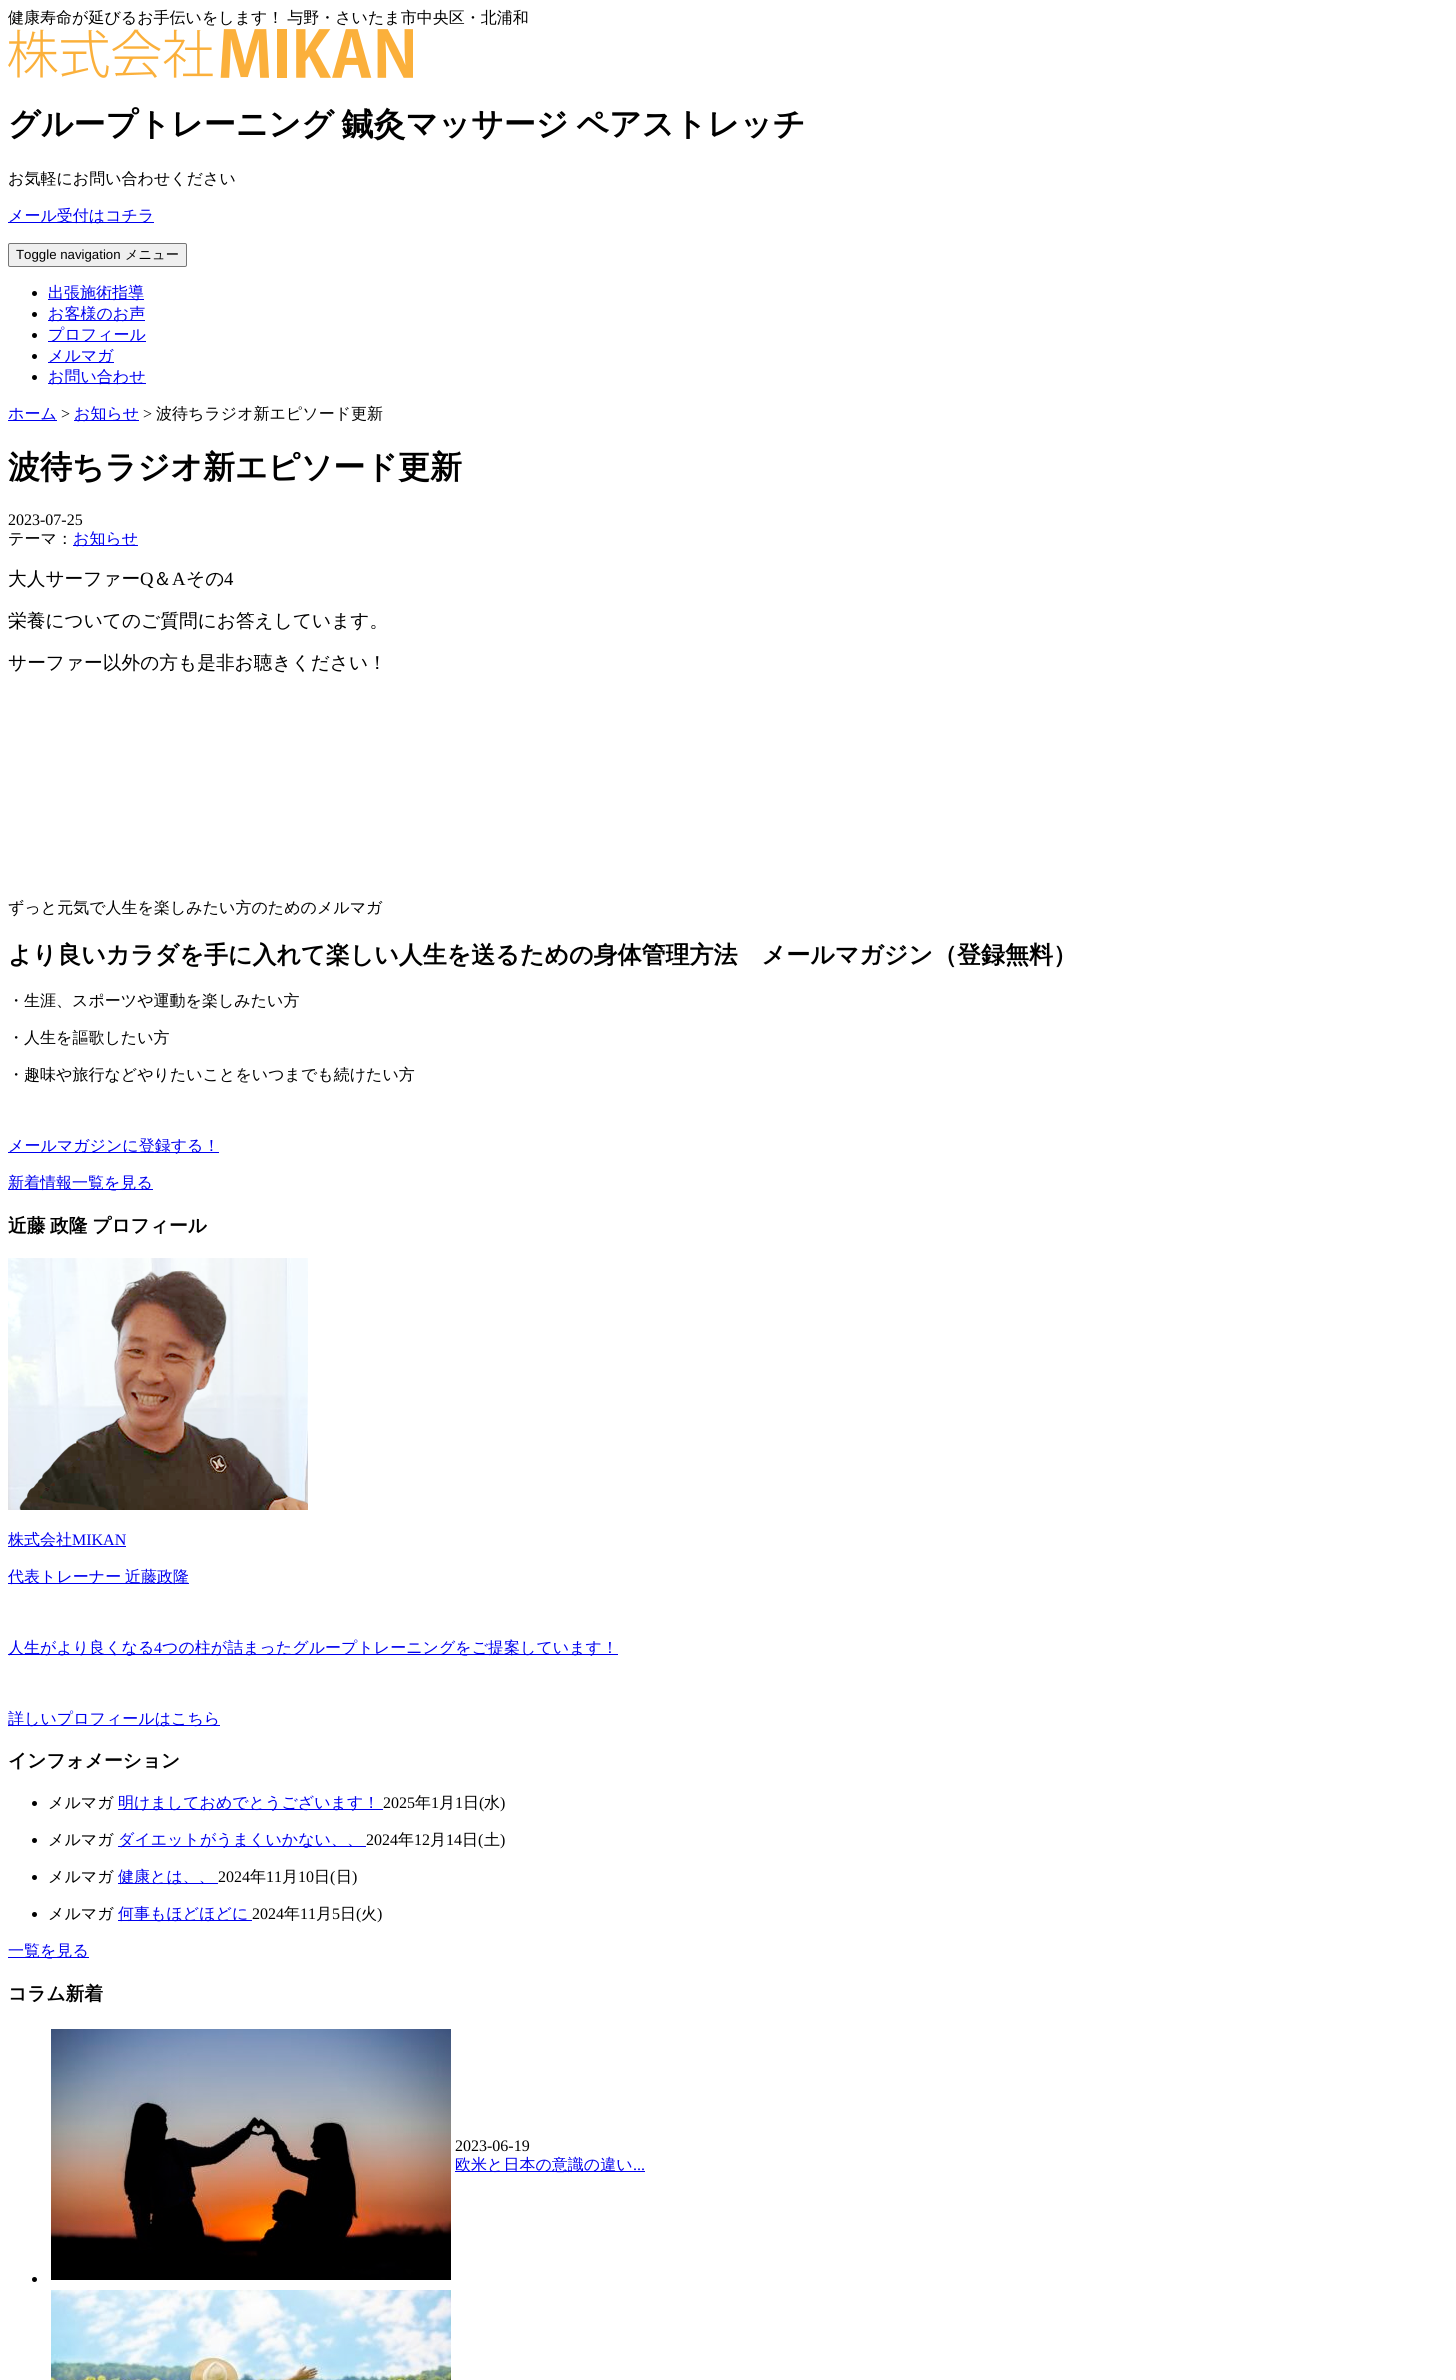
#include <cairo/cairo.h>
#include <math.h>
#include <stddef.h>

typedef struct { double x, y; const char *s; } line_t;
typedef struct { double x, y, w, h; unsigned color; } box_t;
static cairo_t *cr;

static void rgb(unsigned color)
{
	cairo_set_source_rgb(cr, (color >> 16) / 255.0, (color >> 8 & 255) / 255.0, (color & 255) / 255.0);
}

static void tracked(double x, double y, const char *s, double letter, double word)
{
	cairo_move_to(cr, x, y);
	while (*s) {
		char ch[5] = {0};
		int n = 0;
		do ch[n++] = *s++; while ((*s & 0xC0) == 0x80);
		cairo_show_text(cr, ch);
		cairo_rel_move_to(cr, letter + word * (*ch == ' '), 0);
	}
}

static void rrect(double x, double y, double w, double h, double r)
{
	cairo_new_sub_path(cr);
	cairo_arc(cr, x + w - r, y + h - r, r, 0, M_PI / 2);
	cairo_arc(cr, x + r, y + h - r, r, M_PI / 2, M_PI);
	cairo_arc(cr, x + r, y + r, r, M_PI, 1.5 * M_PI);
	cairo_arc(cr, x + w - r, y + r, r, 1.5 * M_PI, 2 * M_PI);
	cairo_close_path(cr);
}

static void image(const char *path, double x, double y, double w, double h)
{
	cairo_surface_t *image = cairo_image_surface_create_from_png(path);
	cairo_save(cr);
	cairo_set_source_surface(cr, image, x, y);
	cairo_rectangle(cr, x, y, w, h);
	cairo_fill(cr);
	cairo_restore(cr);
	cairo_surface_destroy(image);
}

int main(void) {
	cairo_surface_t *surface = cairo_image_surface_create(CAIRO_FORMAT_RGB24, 1456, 2380);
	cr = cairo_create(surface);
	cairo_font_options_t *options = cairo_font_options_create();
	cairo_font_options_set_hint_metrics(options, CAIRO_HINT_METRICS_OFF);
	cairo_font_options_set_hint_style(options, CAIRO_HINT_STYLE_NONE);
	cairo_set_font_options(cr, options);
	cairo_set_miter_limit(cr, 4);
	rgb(0xffffff);
	cairo_paint(cr);
	image("img/1.png", 8, 29, 405, 49);
	rgb(0x0000ee);
	cairo_rectangle(cr, 8, 222, 146, 1);
	cairo_fill(cr);
	rgb(0xefefef);
	rrect(8.5, 243.5, 178, 23, 1.5);
	cairo_fill_preserve(cr);
	rgb(0x767676);
	cairo_set_line_width(cr, 1);
	cairo_stroke(cr);
	rgb(0x000000);
	cairo_arc(cr, 34.5, 293.5, 2.5, 0, 2 * M_PI);
	cairo_fill(cr);
	rgb(0x0000ee);
	cairo_rectangle(cr, 48, 299, 96, 1);
	cairo_fill(cr);
	rgb(0x000000);
	cairo_arc(cr, 34.5, 314.5, 2.5, 0, 2 * M_PI);
	cairo_fill(cr);
	rgb(0x0000ee);
	cairo_rectangle(cr, 48, 320, 97, 1);
	cairo_fill(cr);
	rgb(0x000000);
	cairo_arc(cr, 34.5, 335.5, 2.5, 0, 2 * M_PI);
	cairo_fill(cr);
	rgb(0x0000ee);
	cairo_rectangle(cr, 48, 341, 98, 1);
	cairo_fill(cr);
	rgb(0x000000);
	cairo_arc(cr, 34.5, 356.5, 2.5, 0, 2 * M_PI);
	cairo_fill(cr);
	rgb(0x0000ee);
	cairo_rectangle(cr, 48, 362, 66, 1);
	cairo_fill(cr);
	rgb(0x000000);
	cairo_arc(cr, 34.5, 377.5, 2.5, 0, 2 * M_PI);
	cairo_fill(cr);
	{
		static const box_t items[] = {
			{48, 383, 98, 1, 0x0000ee},
			{8, 420, 49, 1, 0x0000ee},
			{74, 420, 65, 1, 0x0000ee},
			{73, 545, 65, 1, 0x0000ee},
			{8, 1152, 211, 1, 0x0000ee},
			{8, 1189, 145, 1, 0x0000ee},
		};
		for (size_t i = 0; i < sizeof items / sizeof *items; i++) {
			rgb(items[i].color);
			cairo_rectangle(cr, items[i].x, items[i].y, items[i].w, items[i].h);
			cairo_fill(cr);
		}
	}
	image("img/2.png", 8, 1258, 300, 252);
	{
		static const box_t items[] = {
			{8, 1546, 118, 1, 0x0000ee},
			{8, 1583, 181, 1, 0x0000ee},
			{8, 1654, 610, 1, 0x0000ee},
			{8, 1725, 212, 1, 0x0000ee},
		};
		for (size_t i = 0; i < sizeof items / sizeof *items; i++) {
			rgb(items[i].color);
			cairo_rectangle(cr, items[i].x, items[i].y, items[i].w, items[i].h);
			cairo_fill(cr);
		}
	}
	rgb(0x000000);
	cairo_arc(cr, 34.5, 1803.5, 2.5, 0, 2 * M_PI);
	cairo_fill(cr);
	rgb(0x0000ee);
	cairo_rectangle(cr, 118, 1809, 265, 1);
	cairo_fill(cr);
	rgb(0x000000);
	cairo_arc(cr, 34.5, 1840.5, 2.5, 0, 2 * M_PI);
	cairo_fill(cr);
	rgb(0x0000ee);
	cairo_rectangle(cr, 118, 1846, 248, 1);
	cairo_fill(cr);
	rgb(0x000000);
	cairo_arc(cr, 34.5, 1877.5, 2.5, 0, 2 * M_PI);
	cairo_fill(cr);
	rgb(0x0000ee);
	cairo_rectangle(cr, 118, 1883, 100, 1);
	cairo_fill(cr);
	rgb(0x000000);
	cairo_arc(cr, 34.5, 1914.5, 2.5, 0, 2 * M_PI);
	cairo_fill(cr);
	rgb(0x0000ee);
	cairo_rectangle(cr, 118, 1920, 134, 1);
	cairo_fill(cr);
	cairo_rectangle(cr, 8, 1957, 81, 1);
	cairo_fill(cr);
	image("img/3.png", 51, 2029, 400, 251);
	cairo_rectangle(cr, 455, 2171, 190, 1);
	cairo_fill(cr);
	rgb(0x000000);
	cairo_arc(cr, 34.5, 2279.5, 2.5, 0, 2 * M_PI);
	cairo_fill(cr);
	image("img/4.png", 51, 2290, 400, 90);
	cairo_select_font_face(cr, "WenQuanYi Zen Hei Medium", CAIRO_FONT_SLANT_NORMAL, CAIRO_FONT_WEIGHT_NORMAL);
	cairo_set_font_size(cr, 16);
	tracked(8, 23, "健康寿命が延びるお手伝いをします！ 与野・さいたま市中央区・北浦和", 0, -1);
	cairo_select_font_face(cr, "WenQuanYi Zen Hei", CAIRO_FONT_SLANT_NORMAL, CAIRO_FONT_WEIGHT_BOLD);
	cairo_set_font_size(cr, 32);
	tracked(8, 135, "グループトレーニング 鍼灸マッサージ ペアストレッチ", 0, -2);
	cairo_select_font_face(cr, "WenQuanYi Zen Hei Medium", CAIRO_FONT_SLANT_NORMAL, CAIRO_FONT_WEIGHT_NORMAL);
	cairo_set_font_size(cr, 16);
	cairo_move_to(cr, 8, 184);
	cairo_show_text(cr, "お気軽にお問い合わせください");
	rgb(0x0000ee);
	cairo_move_to(cr, 8, 221);
	cairo_show_text(cr, "メール受付はコチラ");
	cairo_select_font_face(cr, "Liberation Sans", CAIRO_FONT_SLANT_NORMAL, CAIRO_FONT_WEIGHT_NORMAL);
	cairo_set_font_size(cr, 13.25);
	rgb(0x000000);
	cairo_move_to(cr, 16, 259);
	cairo_show_text(cr, "Toggle navigation");
	cairo_select_font_face(cr, "WenQuanYi Zen Hei Medium", CAIRO_FONT_SLANT_NORMAL, CAIRO_FONT_WEIGHT_NORMAL);
	cairo_move_to(cr, 125, 259);
	cairo_show_text(cr, "メニュー");
	cairo_set_font_size(cr, 16);
	rgb(0x0000ee);
	{
		static const line_t items[] = {
			{48, 298, "出張施術指導"},
			{48, 319, "お客様のお声"},
			{48, 340, "プロフィール"},
			{48, 361, "メルマガ"},
			{48, 382, "お問い合わせ"},
			{8, 419, "ホーム"},
		};
		for (size_t i = 0; i < sizeof items / sizeof *items; i++) {
			cairo_move_to(cr, items[i].x, items[i].y);
			cairo_show_text(cr, items[i].s);
		}
	}
	cairo_select_font_face(cr, "Liberation Serif", CAIRO_FONT_SLANT_NORMAL, CAIRO_FONT_WEIGHT_NORMAL);
	rgb(0x000000);
	cairo_move_to(cr, 61, 419);
	cairo_show_text(cr, ">");
	cairo_select_font_face(cr, "WenQuanYi Zen Hei Medium", CAIRO_FONT_SLANT_NORMAL, CAIRO_FONT_WEIGHT_NORMAL);
	rgb(0x0000ee);
	cairo_move_to(cr, 74, 419);
	cairo_show_text(cr, "お知らせ");
	cairo_select_font_face(cr, "Liberation Serif", CAIRO_FONT_SLANT_NORMAL, CAIRO_FONT_WEIGHT_NORMAL);
	rgb(0x000000);
	cairo_move_to(cr, 143, 419);
	cairo_show_text(cr, ">");
	cairo_select_font_face(cr, "WenQuanYi Zen Hei Medium", CAIRO_FONT_SLANT_NORMAL, CAIRO_FONT_WEIGHT_NORMAL);
	cairo_move_to(cr, 156, 419);
	cairo_show_text(cr, "波待ちラジオ新エピソード更新");
	cairo_select_font_face(cr, "WenQuanYi Zen Hei", CAIRO_FONT_SLANT_NORMAL, CAIRO_FONT_WEIGHT_BOLD);
	cairo_set_font_size(cr, 32);
	cairo_move_to(cr, 8, 478);
	cairo_show_text(cr, "波待ちラジオ新エピソード更新");
	cairo_select_font_face(cr, "Liberation Serif", CAIRO_FONT_SLANT_NORMAL, CAIRO_FONT_WEIGHT_NORMAL);
	cairo_set_font_size(cr, 16);
	cairo_move_to(cr, 8, 525);
	cairo_show_text(cr, "2023-07-25");
	cairo_select_font_face(cr, "WenQuanYi Zen Hei Medium", CAIRO_FONT_SLANT_NORMAL, CAIRO_FONT_WEIGHT_NORMAL);
	cairo_move_to(cr, 8, 544);
	cairo_show_text(cr, "テーマ：");
	rgb(0x0000ee);
	cairo_move_to(cr, 73, 544);
	cairo_show_text(cr, "お知らせ");
	cairo_set_font_size(cr, 18.7);
	rgb(0x000000);
	cairo_move_to(cr, 8, 585);
	cairo_show_text(cr, "大人サーファー");
	cairo_select_font_face(cr, "Liberation Serif", CAIRO_FONT_SLANT_NORMAL, CAIRO_FONT_WEIGHT_NORMAL);
	cairo_move_to(cr, 140, 585);
	cairo_show_text(cr, "Q");
	cairo_select_font_face(cr, "WenQuanYi Zen Hei Medium", CAIRO_FONT_SLANT_NORMAL, CAIRO_FONT_WEIGHT_NORMAL);
	cairo_move_to(cr, 153, 585);
	cairo_show_text(cr, "＆");
	cairo_select_font_face(cr, "Liberation Serif", CAIRO_FONT_SLANT_NORMAL, CAIRO_FONT_WEIGHT_NORMAL);
	cairo_move_to(cr, 172, 585);
	cairo_show_text(cr, "A");
	cairo_select_font_face(cr, "WenQuanYi Zen Hei Medium", CAIRO_FONT_SLANT_NORMAL, CAIRO_FONT_WEIGHT_NORMAL);
	cairo_move_to(cr, 186, 585);
	cairo_show_text(cr, "その");
	cairo_select_font_face(cr, "Liberation Serif", CAIRO_FONT_SLANT_NORMAL, CAIRO_FONT_WEIGHT_NORMAL);
	cairo_move_to(cr, 224, 585);
	cairo_show_text(cr, "4");
	cairo_select_font_face(cr, "WenQuanYi Zen Hei Medium", CAIRO_FONT_SLANT_NORMAL, CAIRO_FONT_WEIGHT_NORMAL);
	cairo_move_to(cr, 8, 627);
	cairo_show_text(cr, "栄養についてのご質問にお答えしています。");
	cairo_move_to(cr, 8, 669);
	cairo_show_text(cr, "サーファー以外の方も是非お聴きください！");
	cairo_set_font_size(cr, 16);
	cairo_move_to(cr, 8, 913);
	cairo_show_text(cr, "ずっと元気で人生を楽しみたい方のためのメルマガ");
	cairo_select_font_face(cr, "WenQuanYi Zen Hei", CAIRO_FONT_SLANT_NORMAL, CAIRO_FONT_WEIGHT_BOLD);
	cairo_set_font_size(cr, 24);
	cairo_move_to(cr, 8, 963);
	cairo_show_text(cr, "より良いカラダを手に入れて楽しい人生を送るための身体管理方法　メールマガジン（登録無料）");
	cairo_select_font_face(cr, "WenQuanYi Zen Hei Medium", CAIRO_FONT_SLANT_NORMAL, CAIRO_FONT_WEIGHT_NORMAL);
	cairo_set_font_size(cr, 16);
	{
		static const line_t items[] = {
			{8, 1006, "・生涯、スポーツや運動を楽しみたい方"},
			{8, 1043, "・人生を謳歌したい方"},
			{8, 1080, "・趣味や旅行などやりたいことをいつまでも続けたい方"},
		};
		for (size_t i = 0; i < sizeof items / sizeof *items; i++) {
			cairo_move_to(cr, items[i].x, items[i].y);
			cairo_show_text(cr, items[i].s);
		}
	}
	rgb(0x0000ee);
	cairo_move_to(cr, 8, 1151);
	cairo_show_text(cr, "メールマガジンに登録する！");
	cairo_move_to(cr, 8, 1188);
	cairo_show_text(cr, "新着情報一覧を見る");
	cairo_select_font_face(cr, "WenQuanYi Zen Hei", CAIRO_FONT_SLANT_NORMAL, CAIRO_FONT_WEIGHT_BOLD);
	cairo_set_font_size(cr, 18.75);
	rgb(0x000000);
	tracked(8, 1232, "近藤 政隆 プロフィール", 0, -1);
	cairo_select_font_face(cr, "WenQuanYi Zen Hei Medium", CAIRO_FONT_SLANT_NORMAL, CAIRO_FONT_WEIGHT_NORMAL);
	cairo_set_font_size(cr, 16);
	rgb(0x0000ee);
	cairo_move_to(cr, 8, 1545);
	cairo_show_text(cr, "株式会社");
	cairo_select_font_face(cr, "Liberation Serif", CAIRO_FONT_SLANT_NORMAL, CAIRO_FONT_WEIGHT_NORMAL);
	cairo_move_to(cr, 72, 1545);
	cairo_show_text(cr, "MIKAN");
	cairo_select_font_face(cr, "WenQuanYi Zen Hei Medium", CAIRO_FONT_SLANT_NORMAL, CAIRO_FONT_WEIGHT_NORMAL);
	tracked(8, 1582, "代表トレーナー 近藤政隆", 0, -1);
	cairo_move_to(cr, 8, 1653);
	cairo_show_text(cr, "人生がより良くなる");
	cairo_select_font_face(cr, "Liberation Serif", CAIRO_FONT_SLANT_NORMAL, CAIRO_FONT_WEIGHT_NORMAL);
	cairo_move_to(cr, 154, 1653);
	cairo_show_text(cr, "4");
	cairo_select_font_face(cr, "WenQuanYi Zen Hei Medium", CAIRO_FONT_SLANT_NORMAL, CAIRO_FONT_WEIGHT_NORMAL);
	cairo_move_to(cr, 162, 1653);
	cairo_show_text(cr, "つの柱が詰まったグループトレーニングをご提案しています！");
	cairo_move_to(cr, 8, 1724);
	cairo_show_text(cr, "詳しいプロフィールはこちら");
	cairo_select_font_face(cr, "WenQuanYi Zen Hei", CAIRO_FONT_SLANT_NORMAL, CAIRO_FONT_WEIGHT_BOLD);
	cairo_set_font_size(cr, 18.75);
	rgb(0x000000);
	cairo_move_to(cr, 8, 1767);
	cairo_show_text(cr, "インフォメーション");
	cairo_select_font_face(cr, "WenQuanYi Zen Hei Medium", CAIRO_FONT_SLANT_NORMAL, CAIRO_FONT_WEIGHT_NORMAL);
	cairo_set_font_size(cr, 16);
	cairo_move_to(cr, 48, 1808);
	cairo_show_text(cr, "メルマガ");
	rgb(0x0000ee);
	cairo_move_to(cr, 118, 1808);
	cairo_show_text(cr, "明けましておめでとうございます！");
	cairo_select_font_face(cr, "Liberation Serif", CAIRO_FONT_SLANT_NORMAL, CAIRO_FONT_WEIGHT_NORMAL);
	rgb(0x000000);
	cairo_move_to(cr, 383, 1808);
	cairo_show_text(cr, "2025");
	cairo_select_font_face(cr, "WenQuanYi Zen Hei Medium", CAIRO_FONT_SLANT_NORMAL, CAIRO_FONT_WEIGHT_NORMAL);
	cairo_move_to(cr, 415, 1808);
	cairo_show_text(cr, "年");
	cairo_select_font_face(cr, "Liberation Serif", CAIRO_FONT_SLANT_NORMAL, CAIRO_FONT_WEIGHT_NORMAL);
	cairo_move_to(cr, 431, 1808);
	cairo_show_text(cr, "1");
	cairo_select_font_face(cr, "WenQuanYi Zen Hei Medium", CAIRO_FONT_SLANT_NORMAL, CAIRO_FONT_WEIGHT_NORMAL);
	cairo_move_to(cr, 439, 1808);
	cairo_show_text(cr, "月");
	cairo_select_font_face(cr, "Liberation Serif", CAIRO_FONT_SLANT_NORMAL, CAIRO_FONT_WEIGHT_NORMAL);
	cairo_move_to(cr, 455, 1808);
	cairo_show_text(cr, "1");
	cairo_select_font_face(cr, "WenQuanYi Zen Hei Medium", CAIRO_FONT_SLANT_NORMAL, CAIRO_FONT_WEIGHT_NORMAL);
	cairo_move_to(cr, 463, 1808);
	cairo_show_text(cr, "日");
	cairo_select_font_face(cr, "Liberation Serif", CAIRO_FONT_SLANT_NORMAL, CAIRO_FONT_WEIGHT_NORMAL);
	cairo_move_to(cr, 479, 1808);
	cairo_show_text(cr, "(");
	cairo_select_font_face(cr, "WenQuanYi Zen Hei Medium", CAIRO_FONT_SLANT_NORMAL, CAIRO_FONT_WEIGHT_NORMAL);
	cairo_move_to(cr, 484, 1808);
	cairo_show_text(cr, "水");
	cairo_select_font_face(cr, "Liberation Serif", CAIRO_FONT_SLANT_NORMAL, CAIRO_FONT_WEIGHT_NORMAL);
	cairo_move_to(cr, 500, 1808);
	cairo_show_text(cr, ")");
	cairo_select_font_face(cr, "WenQuanYi Zen Hei Medium", CAIRO_FONT_SLANT_NORMAL, CAIRO_FONT_WEIGHT_NORMAL);
	cairo_move_to(cr, 48, 1845);
	cairo_show_text(cr, "メルマガ");
	rgb(0x0000ee);
	cairo_move_to(cr, 118, 1845);
	cairo_show_text(cr, "ダイエットがうまくいかない、、");
	cairo_select_font_face(cr, "Liberation Serif", CAIRO_FONT_SLANT_NORMAL, CAIRO_FONT_WEIGHT_NORMAL);
	rgb(0x000000);
	cairo_move_to(cr, 366, 1845);
	cairo_show_text(cr, "2024");
	cairo_select_font_face(cr, "WenQuanYi Zen Hei Medium", CAIRO_FONT_SLANT_NORMAL, CAIRO_FONT_WEIGHT_NORMAL);
	cairo_move_to(cr, 398, 1845);
	cairo_show_text(cr, "年");
	cairo_select_font_face(cr, "Liberation Serif", CAIRO_FONT_SLANT_NORMAL, CAIRO_FONT_WEIGHT_NORMAL);
	cairo_move_to(cr, 414, 1845);
	cairo_show_text(cr, "12");
	cairo_select_font_face(cr, "WenQuanYi Zen Hei Medium", CAIRO_FONT_SLANT_NORMAL, CAIRO_FONT_WEIGHT_NORMAL);
	cairo_move_to(cr, 430, 1845);
	cairo_show_text(cr, "月");
	cairo_select_font_face(cr, "Liberation Serif", CAIRO_FONT_SLANT_NORMAL, CAIRO_FONT_WEIGHT_NORMAL);
	cairo_move_to(cr, 446, 1845);
	cairo_show_text(cr, "14");
	cairo_select_font_face(cr, "WenQuanYi Zen Hei Medium", CAIRO_FONT_SLANT_NORMAL, CAIRO_FONT_WEIGHT_NORMAL);
	cairo_move_to(cr, 462, 1845);
	cairo_show_text(cr, "日");
	cairo_select_font_face(cr, "Liberation Serif", CAIRO_FONT_SLANT_NORMAL, CAIRO_FONT_WEIGHT_NORMAL);
	cairo_move_to(cr, 478, 1845);
	cairo_show_text(cr, "(");
	cairo_select_font_face(cr, "WenQuanYi Zen Hei Medium", CAIRO_FONT_SLANT_NORMAL, CAIRO_FONT_WEIGHT_NORMAL);
	cairo_move_to(cr, 484, 1845);
	cairo_show_text(cr, "土");
	cairo_select_font_face(cr, "Liberation Serif", CAIRO_FONT_SLANT_NORMAL, CAIRO_FONT_WEIGHT_NORMAL);
	cairo_move_to(cr, 500, 1845);
	cairo_show_text(cr, ")");
	cairo_select_font_face(cr, "WenQuanYi Zen Hei Medium", CAIRO_FONT_SLANT_NORMAL, CAIRO_FONT_WEIGHT_NORMAL);
	cairo_move_to(cr, 48, 1882);
	cairo_show_text(cr, "メルマガ");
	rgb(0x0000ee);
	cairo_move_to(cr, 118, 1882);
	cairo_show_text(cr, "健康とは、、");
	cairo_select_font_face(cr, "Liberation Serif", CAIRO_FONT_SLANT_NORMAL, CAIRO_FONT_WEIGHT_NORMAL);
	rgb(0x000000);
	cairo_move_to(cr, 218, 1882);
	cairo_show_text(cr, "2024");
	cairo_select_font_face(cr, "WenQuanYi Zen Hei Medium", CAIRO_FONT_SLANT_NORMAL, CAIRO_FONT_WEIGHT_NORMAL);
	cairo_move_to(cr, 250, 1882);
	cairo_show_text(cr, "年");
	cairo_select_font_face(cr, "Liberation Serif", CAIRO_FONT_SLANT_NORMAL, CAIRO_FONT_WEIGHT_NORMAL);
	cairo_move_to(cr, 266, 1882);
	cairo_show_text(cr, "11");
	cairo_select_font_face(cr, "WenQuanYi Zen Hei Medium", CAIRO_FONT_SLANT_NORMAL, CAIRO_FONT_WEIGHT_NORMAL);
	cairo_move_to(cr, 282, 1882);
	cairo_show_text(cr, "月");
	cairo_select_font_face(cr, "Liberation Serif", CAIRO_FONT_SLANT_NORMAL, CAIRO_FONT_WEIGHT_NORMAL);
	cairo_move_to(cr, 298, 1882);
	cairo_show_text(cr, "10");
	cairo_select_font_face(cr, "WenQuanYi Zen Hei Medium", CAIRO_FONT_SLANT_NORMAL, CAIRO_FONT_WEIGHT_NORMAL);
	cairo_move_to(cr, 314, 1882);
	cairo_show_text(cr, "日");
	cairo_select_font_face(cr, "Liberation Serif", CAIRO_FONT_SLANT_NORMAL, CAIRO_FONT_WEIGHT_NORMAL);
	cairo_move_to(cr, 330, 1882);
	cairo_show_text(cr, "(");
	cairo_select_font_face(cr, "WenQuanYi Zen Hei Medium", CAIRO_FONT_SLANT_NORMAL, CAIRO_FONT_WEIGHT_NORMAL);
	cairo_move_to(cr, 336, 1882);
	cairo_show_text(cr, "日");
	cairo_select_font_face(cr, "Liberation Serif", CAIRO_FONT_SLANT_NORMAL, CAIRO_FONT_WEIGHT_NORMAL);
	cairo_move_to(cr, 352, 1882);
	cairo_show_text(cr, ")");
	cairo_select_font_face(cr, "WenQuanYi Zen Hei Medium", CAIRO_FONT_SLANT_NORMAL, CAIRO_FONT_WEIGHT_NORMAL);
	cairo_move_to(cr, 48, 1919);
	cairo_show_text(cr, "メルマガ");
	rgb(0x0000ee);
	cairo_move_to(cr, 118, 1919);
	cairo_show_text(cr, "何事もほどほどに");
	cairo_select_font_face(cr, "Liberation Serif", CAIRO_FONT_SLANT_NORMAL, CAIRO_FONT_WEIGHT_NORMAL);
	rgb(0x000000);
	cairo_move_to(cr, 252, 1919);
	cairo_show_text(cr, "2024");
	cairo_select_font_face(cr, "WenQuanYi Zen Hei Medium", CAIRO_FONT_SLANT_NORMAL, CAIRO_FONT_WEIGHT_NORMAL);
	cairo_move_to(cr, 284, 1919);
	cairo_show_text(cr, "年");
	cairo_select_font_face(cr, "Liberation Serif", CAIRO_FONT_SLANT_NORMAL, CAIRO_FONT_WEIGHT_NORMAL);
	cairo_move_to(cr, 300, 1919);
	cairo_show_text(cr, "11");
	cairo_select_font_face(cr, "WenQuanYi Zen Hei Medium", CAIRO_FONT_SLANT_NORMAL, CAIRO_FONT_WEIGHT_NORMAL);
	cairo_move_to(cr, 316, 1919);
	cairo_show_text(cr, "月");
	cairo_select_font_face(cr, "Liberation Serif", CAIRO_FONT_SLANT_NORMAL, CAIRO_FONT_WEIGHT_NORMAL);
	cairo_move_to(cr, 332, 1919);
	cairo_show_text(cr, "5");
	cairo_select_font_face(cr, "WenQuanYi Zen Hei Medium", CAIRO_FONT_SLANT_NORMAL, CAIRO_FONT_WEIGHT_NORMAL);
	cairo_move_to(cr, 340, 1919);
	cairo_show_text(cr, "日");
	cairo_select_font_face(cr, "Liberation Serif", CAIRO_FONT_SLANT_NORMAL, CAIRO_FONT_WEIGHT_NORMAL);
	cairo_move_to(cr, 356, 1919);
	cairo_show_text(cr, "(");
	cairo_select_font_face(cr, "WenQuanYi Zen Hei Medium", CAIRO_FONT_SLANT_NORMAL, CAIRO_FONT_WEIGHT_NORMAL);
	cairo_move_to(cr, 361, 1919);
	cairo_show_text(cr, "火");
	cairo_select_font_face(cr, "Liberation Serif", CAIRO_FONT_SLANT_NORMAL, CAIRO_FONT_WEIGHT_NORMAL);
	cairo_move_to(cr, 377, 1919);
	cairo_show_text(cr, ")");
	cairo_select_font_face(cr, "WenQuanYi Zen Hei Medium", CAIRO_FONT_SLANT_NORMAL, CAIRO_FONT_WEIGHT_NORMAL);
	rgb(0x0000ee);
	cairo_move_to(cr, 8, 1956);
	cairo_show_text(cr, "一覧を見る");
	cairo_select_font_face(cr, "WenQuanYi Zen Hei", CAIRO_FONT_SLANT_NORMAL, CAIRO_FONT_WEIGHT_BOLD);
	cairo_set_font_size(cr, 18.75);
	rgb(0x000000);
	cairo_move_to(cr, 8, 2000);
	cairo_show_text(cr, "コラム新着");
	cairo_select_font_face(cr, "Liberation Serif", CAIRO_FONT_SLANT_NORMAL, CAIRO_FONT_WEIGHT_NORMAL);
	cairo_set_font_size(cr, 16);
	cairo_move_to(cr, 455, 2151);
	cairo_show_text(cr, "2023-06-19");
	cairo_select_font_face(cr, "WenQuanYi Zen Hei Medium", CAIRO_FONT_SLANT_NORMAL, CAIRO_FONT_WEIGHT_NORMAL);
	rgb(0x0000ee);
	cairo_move_to(cr, 455, 2170);
	cairo_show_text(cr, "欧米と日本の意識の違い");
	cairo_select_font_face(cr, "Liberation Serif", CAIRO_FONT_SLANT_NORMAL, CAIRO_FONT_WEIGHT_NORMAL);
	cairo_move_to(cr, 633, 2170);
	cairo_show_text(cr, "...");
	cairo_surface_write_to_png(surface, "page.png");
	cairo_font_options_destroy(options);
	cairo_destroy(cr);
	cairo_surface_destroy(surface);
	return 0;
}
